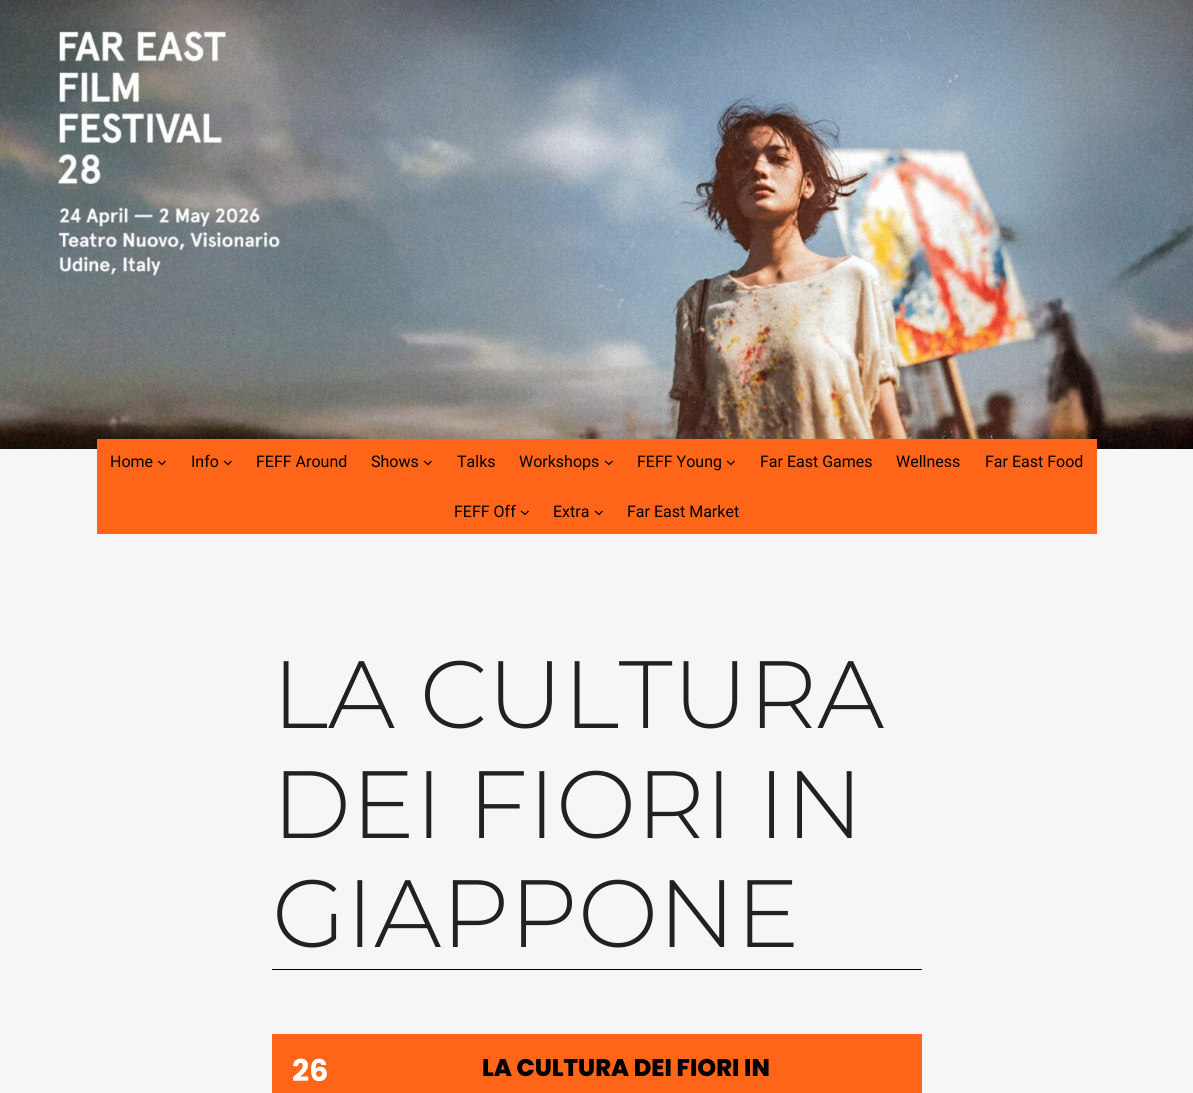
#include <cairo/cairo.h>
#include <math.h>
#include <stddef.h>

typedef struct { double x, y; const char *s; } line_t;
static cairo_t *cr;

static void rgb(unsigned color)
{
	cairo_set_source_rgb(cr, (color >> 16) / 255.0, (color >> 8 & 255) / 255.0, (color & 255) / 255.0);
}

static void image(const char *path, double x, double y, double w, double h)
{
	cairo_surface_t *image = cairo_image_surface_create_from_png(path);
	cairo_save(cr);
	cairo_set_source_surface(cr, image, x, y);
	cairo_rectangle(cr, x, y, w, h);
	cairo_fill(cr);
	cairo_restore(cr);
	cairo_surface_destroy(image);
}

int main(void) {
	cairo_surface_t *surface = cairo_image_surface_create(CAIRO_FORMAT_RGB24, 1193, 1093);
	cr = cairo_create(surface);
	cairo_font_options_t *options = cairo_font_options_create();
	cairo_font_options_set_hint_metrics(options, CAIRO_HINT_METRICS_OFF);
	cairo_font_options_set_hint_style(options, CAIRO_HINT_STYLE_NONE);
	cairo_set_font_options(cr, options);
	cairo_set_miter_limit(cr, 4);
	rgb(0xf6f6f6);
	cairo_paint(cr);
	image("img/1.png", 0, 0, 1193, 449);
	rgb(0xff6518);
	cairo_rectangle(cr, 97, 439, 1000, 95);
	cairo_fill(cr);
	cairo_new_path(cr);
	cairo_move_to(cr, 158, 461);
	cairo_line_to(cr, 162, 464.5);
	cairo_line_to(cr, 165.5, 461);
	rgb(0x000000);
	cairo_set_line_width(cr, 1.2);
	cairo_stroke(cr);
	cairo_new_path(cr);
	cairo_move_to(cr, 224, 461);
	cairo_line_to(cr, 228, 464.5);
	cairo_line_to(cr, 231.5, 461);
	cairo_stroke(cr);
	cairo_new_path(cr);
	cairo_move_to(cr, 424, 461);
	cairo_line_to(cr, 428, 464.5);
	cairo_line_to(cr, 431.5, 461);
	cairo_stroke(cr);
	cairo_new_path(cr);
	cairo_move_to(cr, 605, 461);
	cairo_line_to(cr, 609, 464.5);
	cairo_line_to(cr, 612.5, 461);
	cairo_stroke(cr);
	cairo_new_path(cr);
	cairo_move_to(cr, 727, 461);
	cairo_line_to(cr, 731, 464.5);
	cairo_line_to(cr, 734.5, 461);
	cairo_stroke(cr);
	cairo_new_path(cr);
	cairo_move_to(cr, 521, 511);
	cairo_line_to(cr, 525, 514.5);
	cairo_line_to(cr, 528.5, 511);
	cairo_stroke(cr);
	cairo_new_path(cr);
	cairo_move_to(cr, 595, 511);
	cairo_line_to(cr, 599, 514.5);
	cairo_line_to(cr, 602.5, 511);
	cairo_stroke(cr);
	cairo_rectangle(cr, 272, 969, 650, 1);
	cairo_fill(cr);
	rgb(0xff6518);
	cairo_rectangle(cr, 272, 1034, 650, 59);
	cairo_fill(cr);
	cairo_select_font_face(cr, "Roboto", CAIRO_FONT_SLANT_NORMAL, CAIRO_FONT_WEIGHT_NORMAL);
	cairo_set_font_size(cr, 16);
	rgb(0x000000);
	{
		static const line_t items[] = {
			{110, 467, "Home"},
			{191, 467, "Info"},
			{256, 467, "FEFF Around"},
			{371, 467, "Shows"},
			{457, 467, "Talks"},
			{519, 467, "Workshops"},
			{637, 467, "FEFF Young"},
			{760, 467, "Far East Games"},
			{896, 467, "Wellness"},
			{985, 467, "Far East Food"},
			{454, 517, "FEFF Off"},
			{553, 517, "Extra"},
			{627, 517, "Far East Market"},
		};
		for (size_t i = 0; i < sizeof items / sizeof *items; i++) {
			cairo_move_to(cr, items[i].x, items[i].y);
			cairo_show_text(cr, items[i].s);
		}
	}
	cairo_select_font_face(cr, "Montserrat Light", CAIRO_FONT_SLANT_NORMAL, CAIRO_FONT_WEIGHT_NORMAL);
	cairo_set_font_size(cr, 95.5);
	rgb(0x202124);
	{
		static const line_t items[] = {
			{272, 728, "LA CULTURA"},
			{272, 838, "DEI FIORI IN"},
			{272, 947, "GIAPPONE"},
		};
		for (size_t i = 0; i < sizeof items / sizeof *items; i++) {
			cairo_move_to(cr, items[i].x, items[i].y);
			cairo_show_text(cr, items[i].s);
		}
	}
	cairo_select_font_face(cr, "Poppins", CAIRO_FONT_SLANT_NORMAL, CAIRO_FONT_WEIGHT_BOLD);
	cairo_set_font_size(cr, 30);
	rgb(0xffffff);
	cairo_move_to(cr, 292, 1081);
	cairo_show_text(cr, "26");
	cairo_select_font_face(cr, "Poppins ExtraBold", CAIRO_FONT_SLANT_NORMAL, CAIRO_FONT_WEIGHT_NORMAL);
	cairo_set_font_size(cr, 24);
	rgb(0x000000);
	cairo_move_to(cr, 482, 1076);
	cairo_show_text(cr, "LA CULTURA DEI FIORI IN");
	cairo_surface_write_to_png(surface, "page.png");
	cairo_font_options_destroy(options);
	cairo_destroy(cr);
	cairo_surface_destroy(surface);
	return 0;
}
